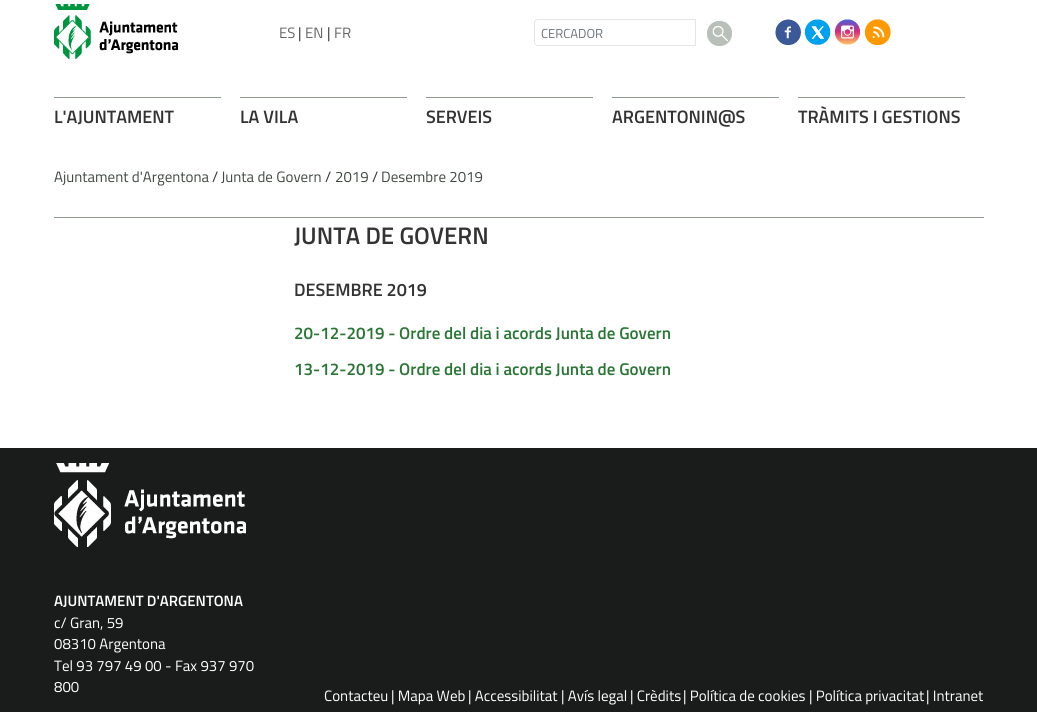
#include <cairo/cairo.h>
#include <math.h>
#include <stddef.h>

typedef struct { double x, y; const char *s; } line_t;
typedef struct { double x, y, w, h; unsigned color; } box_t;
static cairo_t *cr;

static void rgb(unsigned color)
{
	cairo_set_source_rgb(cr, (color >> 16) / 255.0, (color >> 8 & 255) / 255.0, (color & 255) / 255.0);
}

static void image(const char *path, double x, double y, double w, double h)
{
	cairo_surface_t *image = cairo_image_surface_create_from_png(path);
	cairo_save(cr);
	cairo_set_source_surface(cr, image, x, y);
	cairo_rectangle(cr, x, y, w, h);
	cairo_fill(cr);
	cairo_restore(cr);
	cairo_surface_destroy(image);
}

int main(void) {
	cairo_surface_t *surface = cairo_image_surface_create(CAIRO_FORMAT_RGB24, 1037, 712);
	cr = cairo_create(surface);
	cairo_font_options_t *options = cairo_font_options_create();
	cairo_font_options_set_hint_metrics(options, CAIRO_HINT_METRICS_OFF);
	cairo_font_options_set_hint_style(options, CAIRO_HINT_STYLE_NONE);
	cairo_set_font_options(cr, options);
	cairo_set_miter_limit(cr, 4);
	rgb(0xffffff);
	cairo_paint(cr);
	image("img/1.png", 54, 4, 124, 55);
	cairo_new_path(cr);
	cairo_move_to(cr, 538, 19.5);
	cairo_line_to(cr, 695.5, 19.5);
	cairo_line_to(cr, 695.5, 45.5);
	cairo_line_to(cr, 538, 45.5);
	cairo_curve_to(cr, 536, 45.5, 534.5, 44, 534.5, 42);
	cairo_line_to(cr, 534.5, 23);
	cairo_curve_to(cr, 534.5, 21, 536, 19.5, 538, 19.5);
	cairo_close_path(cr);
	rgb(0xe3e6e4);
	cairo_set_line_width(cr, 1);
	cairo_stroke(cr);
	image("img/2.png", 707, 21, 25, 25);
	image("img/3.png", 775, 19, 26, 26);
	image("img/4.png", 805, 19, 26, 26);
	image("img/5.png", 835, 19, 25, 26);
	image("img/6.png", 865, 19, 26, 26);
	{
		static const box_t items[] = {
			{54, 97, 167, 1, 0x909a91},
			{240, 97, 167, 1, 0x909a91},
			{426, 97, 167, 1, 0x909a91},
			{612, 97, 167, 1, 0x909a91},
			{798, 97, 167, 1, 0x909a91},
			{54, 217, 930, 1, 0x909a91},
			{0, 448, 1037, 264, 0x1a1c1b},
		};
		for (size_t i = 0; i < sizeof items / sizeof *items; i++) {
			rgb(items[i].color);
			cairo_rectangle(cr, items[i].x, items[i].y, items[i].w, items[i].h);
			cairo_fill(cr);
		}
	}
	image("img/7.png", 54, 463, 192, 84);
	cairo_select_font_face(cr, "Titillium Web", CAIRO_FONT_SLANT_NORMAL, CAIRO_FONT_WEIGHT_NORMAL);
	cairo_set_font_size(cr, 15);
	rgb(0x666666);
	cairo_move_to(cr, 279, 38);
	cairo_show_text(cr, "ES");
	rgb(0x333333);
	cairo_move_to(cr, 298, 38);
	cairo_show_text(cr, "|");
	rgb(0x666666);
	cairo_move_to(cr, 305, 38);
	cairo_show_text(cr, "EN");
	rgb(0x333333);
	cairo_move_to(cr, 327, 38);
	cairo_show_text(cr, "|");
	rgb(0x666666);
	cairo_move_to(cr, 334, 38);
	cairo_show_text(cr, "FR");
	cairo_set_font_size(cr, 13);
	rgb(0x6c757d);
	cairo_move_to(cr, 541, 38);
	cairo_show_text(cr, "CERCADOR");
	cairo_select_font_face(cr, "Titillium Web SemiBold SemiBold", CAIRO_FONT_SLANT_NORMAL, CAIRO_FONT_WEIGHT_NORMAL);
	cairo_set_font_size(cr, 18);
	rgb(0x333333);
	{
		static const line_t items[] = {
			{54, 123, "L'AJUNTAMENT"},
			{240, 123, "LA VILA"},
			{426, 123, "SERVEIS"},
			{612, 123, "ARGENTONIN@S"},
			{798, 123, "TRÀMITS I GESTIONS"},
		};
		for (size_t i = 0; i < sizeof items / sizeof *items; i++) {
			cairo_move_to(cr, items[i].x, items[i].y);
			cairo_show_text(cr, items[i].s);
		}
	}
	cairo_select_font_face(cr, "Titillium Web", CAIRO_FONT_SLANT_NORMAL, CAIRO_FONT_WEIGHT_NORMAL);
	cairo_set_font_size(cr, 15);
	rgb(0x414942);
	cairo_move_to(cr, 54, 182);
	cairo_show_text(cr, "Ajuntament d'Argentona");
	rgb(0x333333);
	cairo_move_to(cr, 212, 182);
	cairo_show_text(cr, "/");
	rgb(0x414942);
	cairo_move_to(cr, 221, 182);
	cairo_show_text(cr, "Junta de Govern");
	rgb(0x333333);
	cairo_move_to(cr, 325, 182);
	cairo_show_text(cr, "/");
	rgb(0x414942);
	cairo_move_to(cr, 335, 182);
	cairo_show_text(cr, "2019");
	rgb(0x333333);
	cairo_move_to(cr, 372, 182);
	cairo_show_text(cr, "/");
	rgb(0x414942);
	cairo_move_to(cr, 381, 182);
	cairo_show_text(cr, "Desembre 2019");
	cairo_select_font_face(cr, "Titillium Web SemiBold SemiBold", CAIRO_FONT_SLANT_NORMAL, CAIRO_FONT_WEIGHT_NORMAL);
	cairo_set_font_size(cr, 24);
	rgb(0x333333);
	cairo_move_to(cr, 294, 244);
	cairo_show_text(cr, "JUNTA DE GOVERN");
	cairo_set_font_size(cr, 18);
	cairo_move_to(cr, 294, 296);
	cairo_show_text(cr, "DESEMBRE 2019");
	cairo_set_font_size(cr, 17);
	rgb(0x297635);
	cairo_move_to(cr, 294, 339);
	cairo_show_text(cr, "20-12-2019 - Ordre del dia i acords Junta de Govern");
	cairo_move_to(cr, 294, 375);
	cairo_show_text(cr, "13-12-2019 - Ordre del dia i acords Junta de Govern");
	cairo_set_font_size(cr, 15);
	rgb(0xffffff);
	cairo_move_to(cr, 54, 606);
	cairo_show_text(cr, "AJUNTAMENT D'ARGENTONA");
	cairo_select_font_face(cr, "Titillium Web", CAIRO_FONT_SLANT_NORMAL, CAIRO_FONT_WEIGHT_NORMAL);
	{
		static const line_t items[] = {
			{54, 628, "c/ Gran, 59"},
			{54, 649, "08310 Argentona"},
			{54, 671, "Tel 93 797 49 00 - Fax 937 970"},
			{54, 692, "800"},
			{324, 701, "Contacteu"},
			{391, 701, "| Mapa Web"},
			{468, 701, "| Accessibilitat"},
			{561, 701, "| Avís legal"},
			{630, 701, "| Crèdits"},
			{683, 701, "| Política de cookies"},
			{809, 701, "| Política privacitat"},
			{926, 701, "| Intranet"},
		};
		for (size_t i = 0; i < sizeof items / sizeof *items; i++) {
			cairo_move_to(cr, items[i].x, items[i].y);
			cairo_show_text(cr, items[i].s);
		}
	}
	cairo_surface_write_to_png(surface, "page.png");
	cairo_font_options_destroy(options);
	cairo_destroy(cr);
	cairo_surface_destroy(surface);
	return 0;
}
